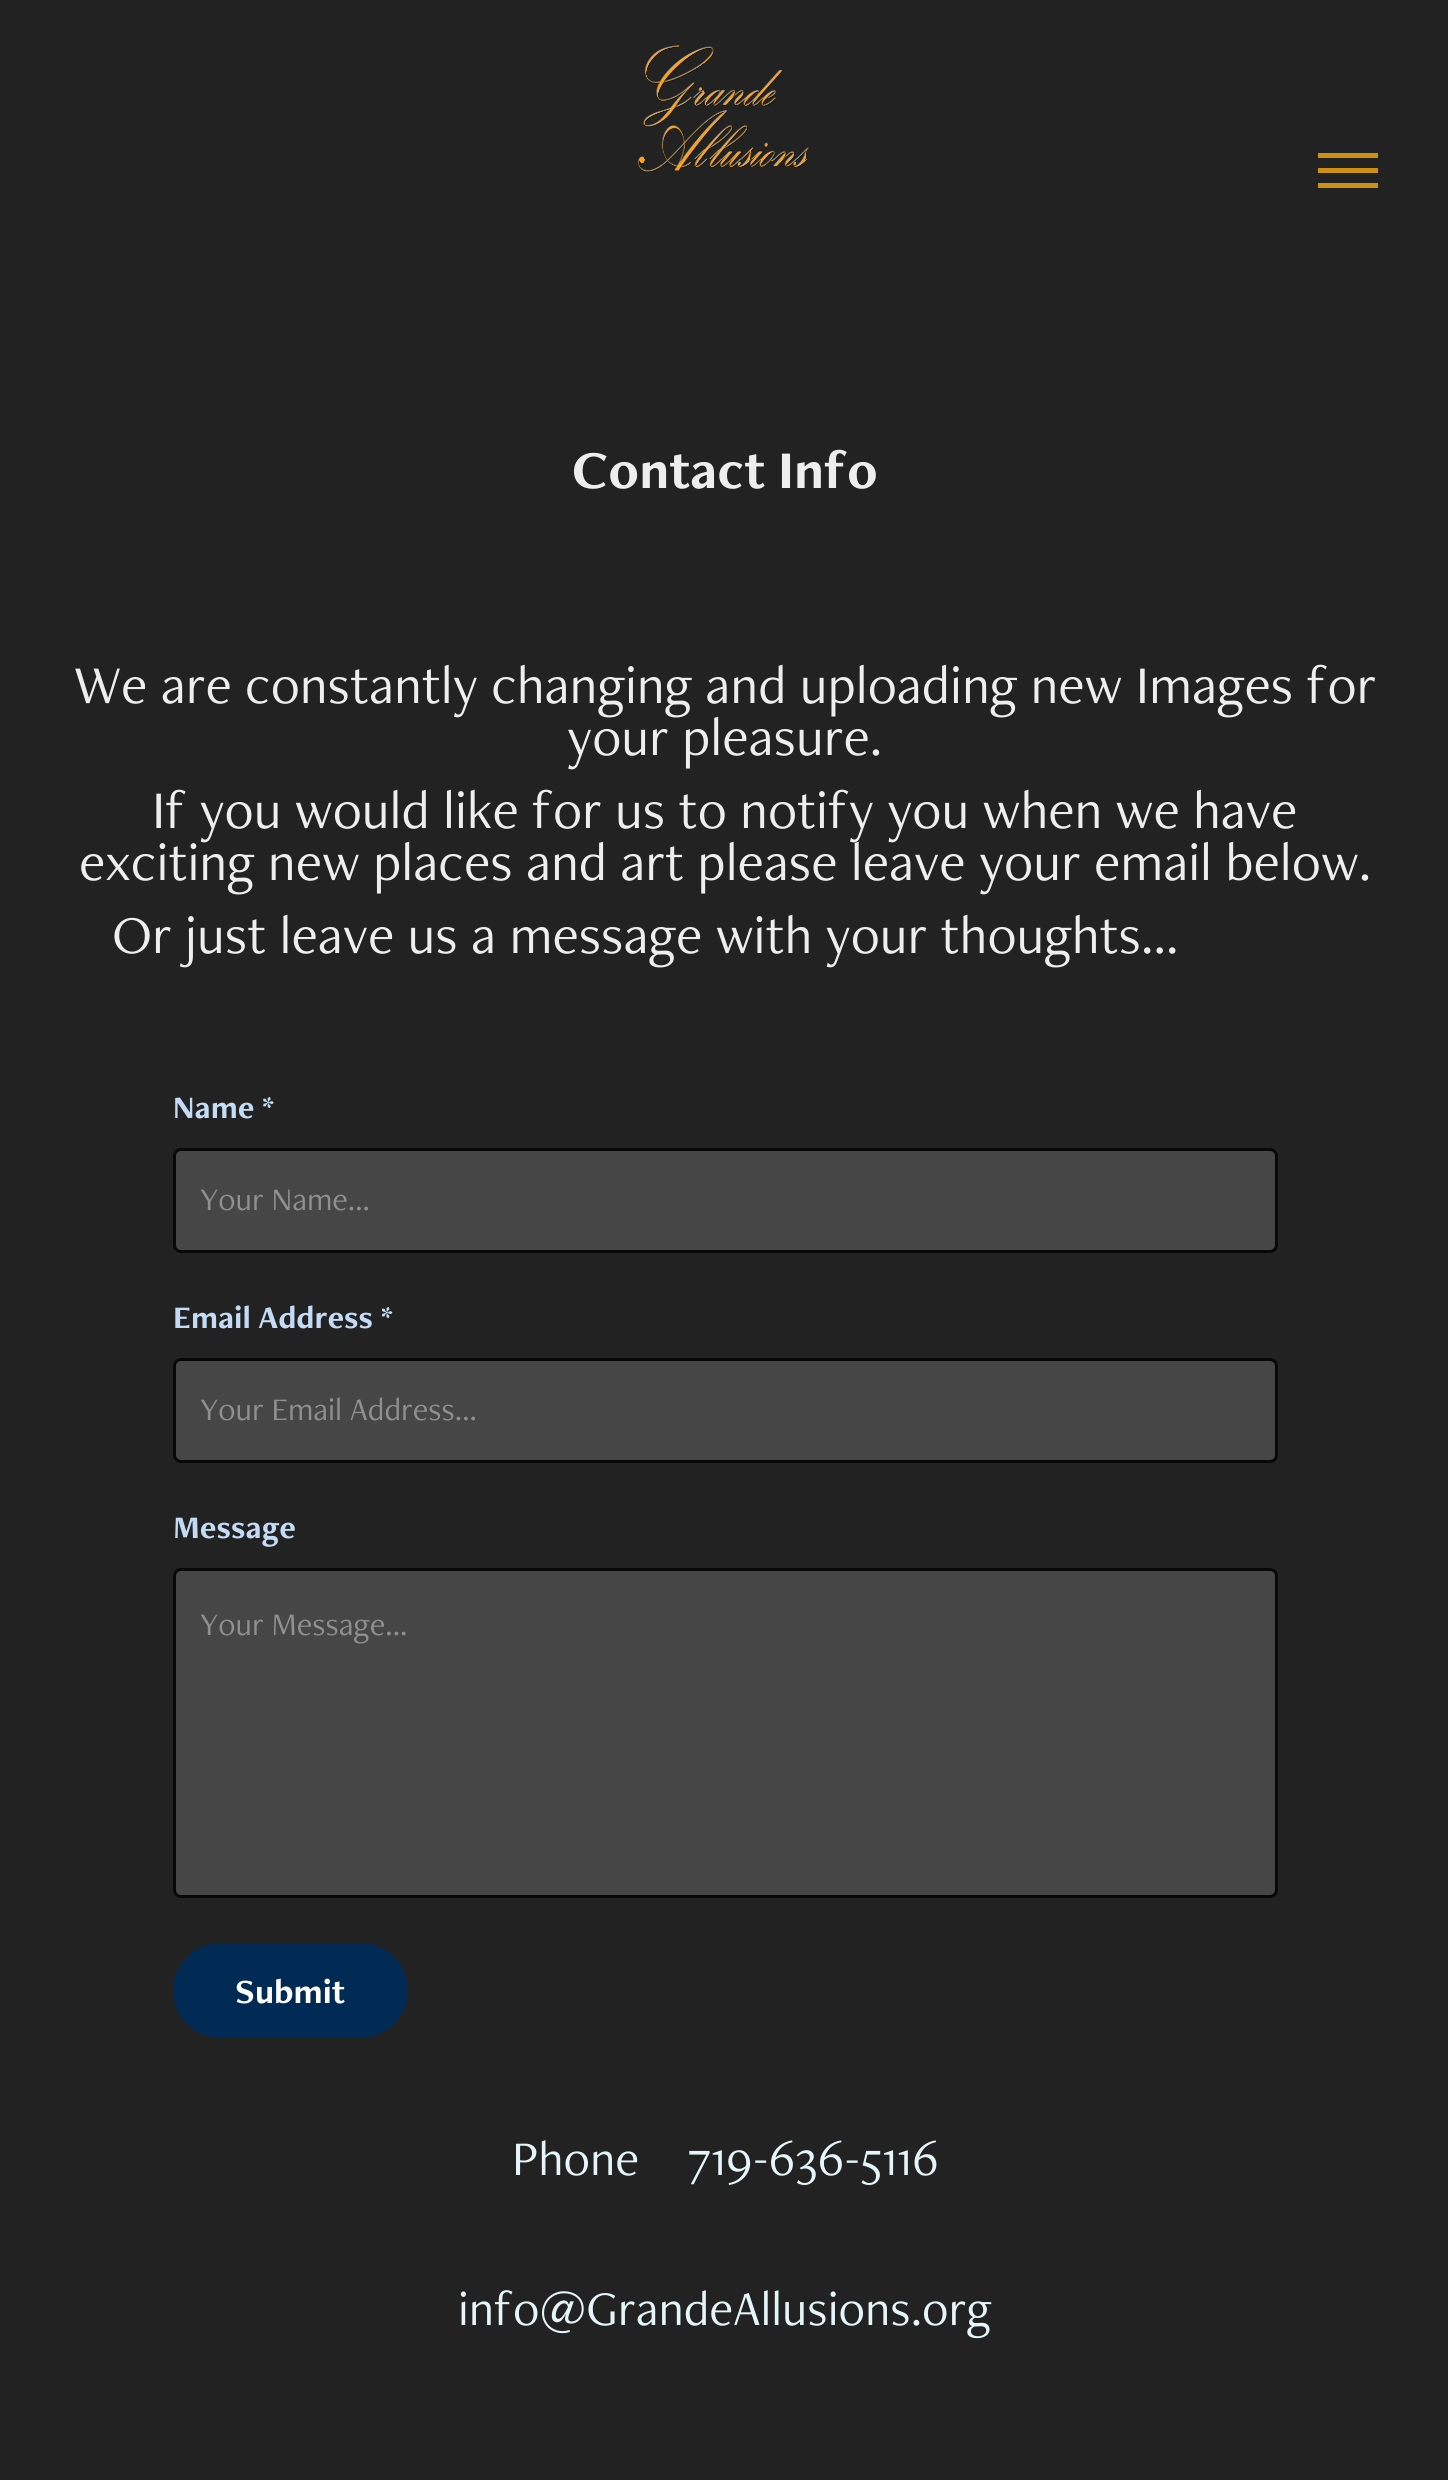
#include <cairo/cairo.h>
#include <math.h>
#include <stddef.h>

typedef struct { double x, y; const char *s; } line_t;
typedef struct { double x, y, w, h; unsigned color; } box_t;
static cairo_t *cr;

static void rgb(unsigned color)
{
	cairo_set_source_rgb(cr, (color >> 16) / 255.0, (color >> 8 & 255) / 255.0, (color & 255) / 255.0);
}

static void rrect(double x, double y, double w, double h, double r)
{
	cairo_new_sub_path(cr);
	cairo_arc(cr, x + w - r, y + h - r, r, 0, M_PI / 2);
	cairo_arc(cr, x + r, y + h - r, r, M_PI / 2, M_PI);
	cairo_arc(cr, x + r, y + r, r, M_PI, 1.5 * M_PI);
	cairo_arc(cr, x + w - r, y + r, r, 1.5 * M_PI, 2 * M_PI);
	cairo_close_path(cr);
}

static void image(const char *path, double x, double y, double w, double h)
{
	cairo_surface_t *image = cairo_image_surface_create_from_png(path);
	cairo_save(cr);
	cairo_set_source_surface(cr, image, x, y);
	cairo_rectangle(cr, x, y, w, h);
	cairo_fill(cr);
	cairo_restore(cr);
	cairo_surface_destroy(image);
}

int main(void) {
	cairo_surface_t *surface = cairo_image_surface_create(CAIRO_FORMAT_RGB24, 1448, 2480);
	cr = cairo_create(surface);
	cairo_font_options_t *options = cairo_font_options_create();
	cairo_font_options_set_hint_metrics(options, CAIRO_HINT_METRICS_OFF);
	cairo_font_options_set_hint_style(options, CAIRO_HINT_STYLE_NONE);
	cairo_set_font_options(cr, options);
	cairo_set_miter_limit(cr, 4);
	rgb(0x222222);
	cairo_paint(cr);
	image("img/1.png", 637, 45, 172, 127);
	{
		static const box_t items[] = {
			{1318, 153, 60, 5, 0xce9013},
			{1318, 168, 60, 5, 0xce9013},
			{1318, 183, 60, 5, 0xce9013},
		};
		for (size_t i = 0; i < sizeof items / sizeof *items; i++) {
			rgb(items[i].color);
			cairo_rectangle(cr, items[i].x, items[i].y, items[i].w, items[i].h);
			cairo_fill(cr);
		}
	}
	rgb(0x474646);
	rrect(174.5, 1149.5, 1102, 102, 6.5);
	cairo_fill_preserve(cr);
	rgb(0x080808);
	cairo_set_line_width(cr, 3);
	cairo_stroke(cr);
	rgb(0x474646);
	rrect(174.5, 1359.5, 1102, 102, 6.5);
	cairo_fill_preserve(cr);
	rgb(0x080808);
	cairo_stroke(cr);
	rgb(0x474646);
	rrect(174.5, 1569.5, 1102, 327, 6.5);
	cairo_fill_preserve(cr);
	rgb(0x080808);
	cairo_stroke(cr);
	rgb(0x012b55);
	rrect(173, 1943, 235, 95, 47.5);
	cairo_fill(cr);
	cairo_select_font_face(cr, "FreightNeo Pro", CAIRO_FONT_SLANT_NORMAL, CAIRO_FONT_WEIGHT_BOLD);
	cairo_set_font_size(cr, 55);
	rgb(0xeeeeee);
	cairo_move_to(cr, 572, 488);
	cairo_show_text(cr, "Contact Info");
	cairo_select_font_face(cr, "FreightNeo Pro", CAIRO_FONT_SLANT_NORMAL, CAIRO_FONT_WEIGHT_NORMAL);
	{
		static const line_t items[] = {
			{74, 703, "We are constantly changing and uploading new Images for"},
			{567, 755, "your pleasure."},
			{152, 828, "If you would like for us to notify you when we have"},
			{79, 880, "exciting new places and art please leave your email below."},
			{112, 953, "Or just leave us a message with your thoughts..."},
		};
		for (size_t i = 0; i < sizeof items / sizeof *items; i++) {
			cairo_move_to(cr, items[i].x, items[i].y);
			cairo_show_text(cr, items[i].s);
		}
	}
	cairo_select_font_face(cr, "FreightNeo Pro", CAIRO_FONT_SLANT_NORMAL, CAIRO_FONT_WEIGHT_BOLD);
	cairo_set_font_size(cr, 32.5);
	rgb(0xc3dbf4);
	cairo_move_to(cr, 173, 1118);
	cairo_show_text(cr, "Name *");
	cairo_select_font_face(cr, "FreightNeo Pro", CAIRO_FONT_SLANT_NORMAL, CAIRO_FONT_WEIGHT_NORMAL);
	rgb(0x909090);
	cairo_move_to(cr, 200, 1210);
	cairo_show_text(cr, "Your Name...");
	cairo_select_font_face(cr, "FreightNeo Pro", CAIRO_FONT_SLANT_NORMAL, CAIRO_FONT_WEIGHT_BOLD);
	rgb(0xc3dbf4);
	cairo_move_to(cr, 173, 1328);
	cairo_show_text(cr, "Email Address *");
	cairo_select_font_face(cr, "FreightNeo Pro", CAIRO_FONT_SLANT_NORMAL, CAIRO_FONT_WEIGHT_NORMAL);
	rgb(0x909090);
	cairo_move_to(cr, 200, 1420);
	cairo_show_text(cr, "Your Email Address...");
	cairo_select_font_face(cr, "FreightNeo Pro", CAIRO_FONT_SLANT_NORMAL, CAIRO_FONT_WEIGHT_BOLD);
	rgb(0xc3dbf4);
	cairo_move_to(cr, 173, 1538);
	cairo_show_text(cr, "Message");
	cairo_select_font_face(cr, "FreightNeo Pro", CAIRO_FONT_SLANT_NORMAL, CAIRO_FONT_WEIGHT_NORMAL);
	rgb(0x909090);
	cairo_move_to(cr, 200, 1635);
	cairo_show_text(cr, "Your Message...");
	cairo_select_font_face(cr, "FreightNeo Pro", CAIRO_FONT_SLANT_NORMAL, CAIRO_FONT_WEIGHT_BOLD);
	cairo_set_font_size(cr, 35);
	rgb(0xffffff);
	cairo_move_to(cr, 235, 2003);
	cairo_show_text(cr, "Submit");
	cairo_select_font_face(cr, "FreightNeo Pro", CAIRO_FONT_SLANT_NORMAL, CAIRO_FONT_WEIGHT_NORMAL);
	cairo_set_font_size(cr, 50);
	rgb(0xe4f6f9);
	cairo_move_to(cr, 512, 2175);
	cairo_show_text(cr, "Phone    719-636-5116");
	cairo_move_to(cr, 458, 2325);
	cairo_show_text(cr, "info@GrandeAllusions.org");
	cairo_surface_write_to_png(surface, "page.png");
	cairo_font_options_destroy(options);
	cairo_destroy(cr);
	cairo_surface_destroy(surface);
	return 0;
}
